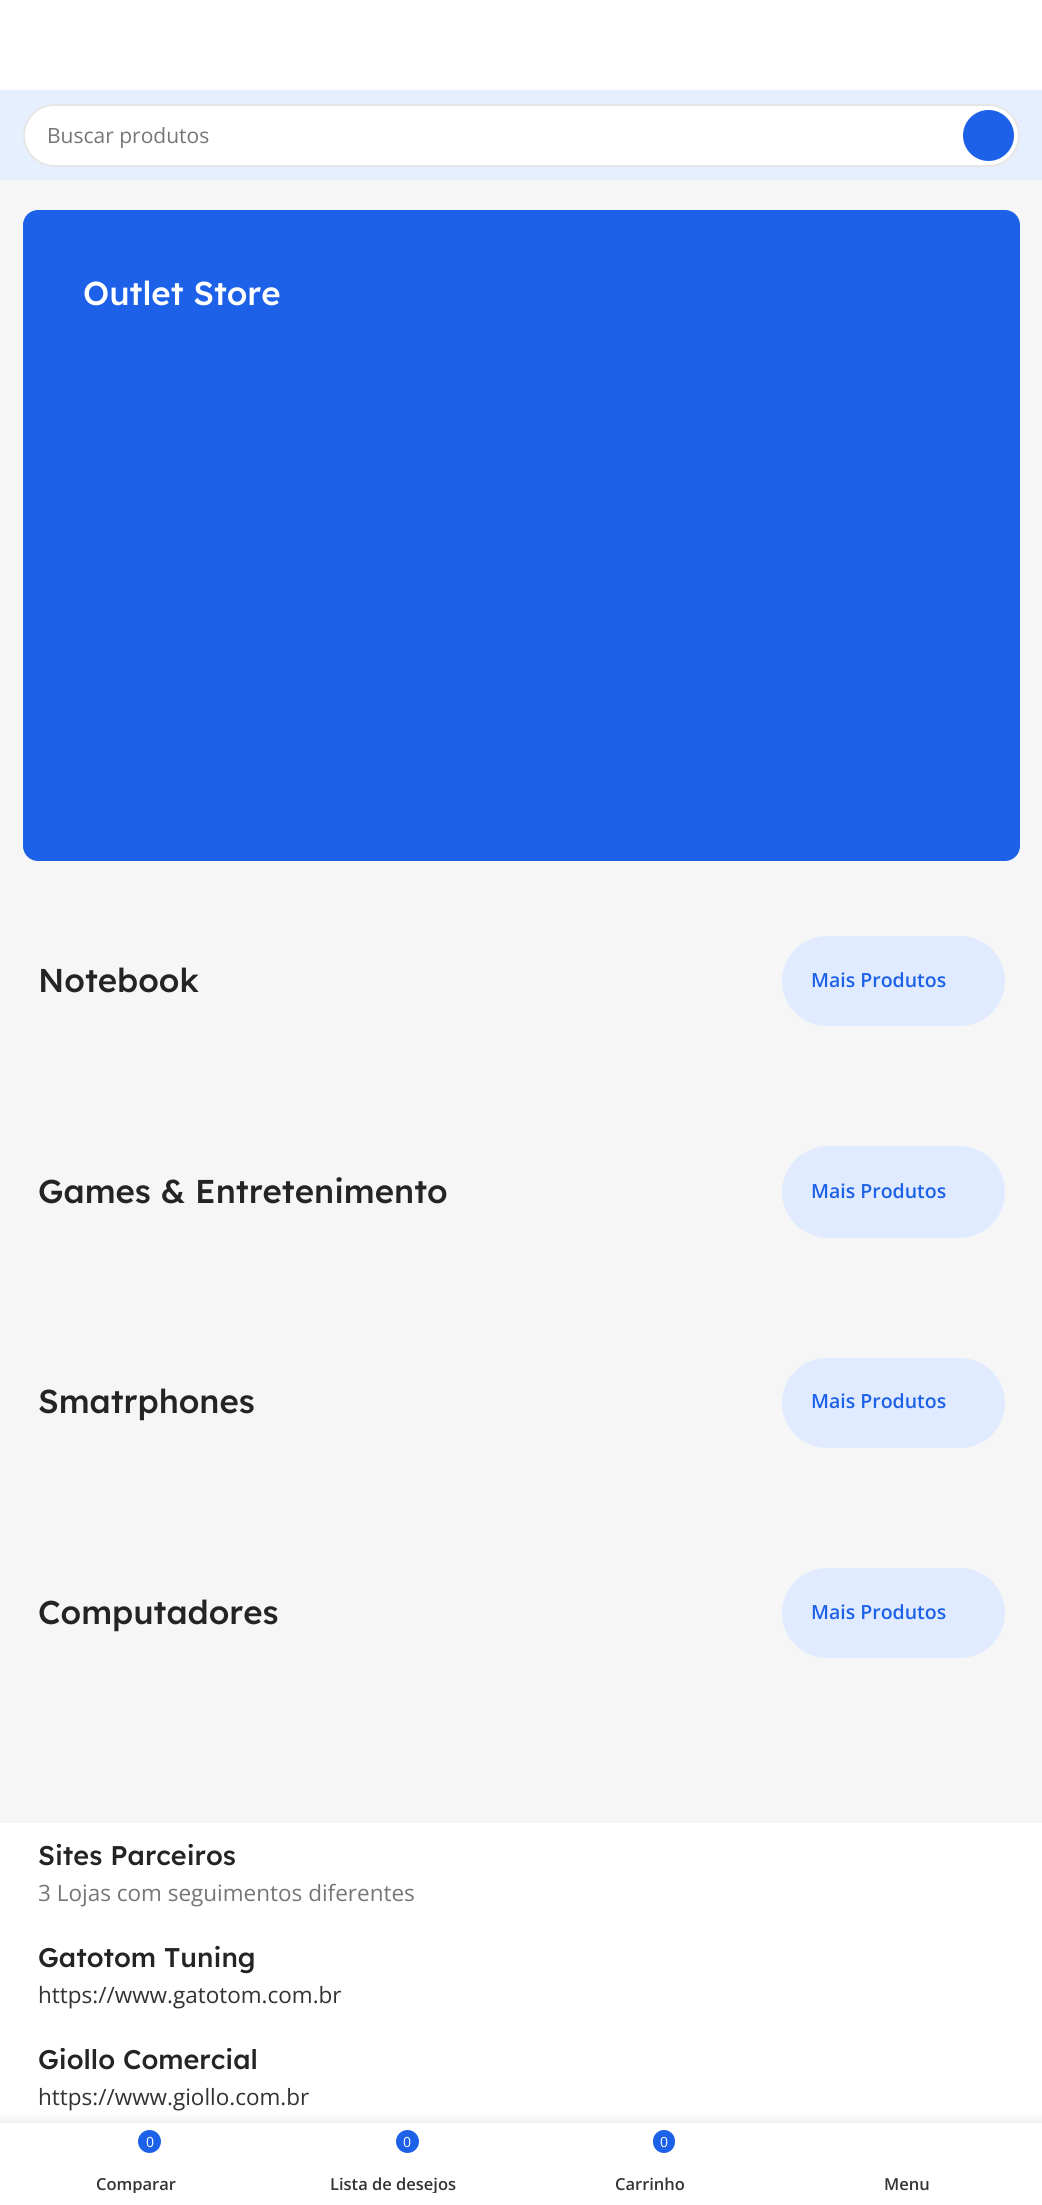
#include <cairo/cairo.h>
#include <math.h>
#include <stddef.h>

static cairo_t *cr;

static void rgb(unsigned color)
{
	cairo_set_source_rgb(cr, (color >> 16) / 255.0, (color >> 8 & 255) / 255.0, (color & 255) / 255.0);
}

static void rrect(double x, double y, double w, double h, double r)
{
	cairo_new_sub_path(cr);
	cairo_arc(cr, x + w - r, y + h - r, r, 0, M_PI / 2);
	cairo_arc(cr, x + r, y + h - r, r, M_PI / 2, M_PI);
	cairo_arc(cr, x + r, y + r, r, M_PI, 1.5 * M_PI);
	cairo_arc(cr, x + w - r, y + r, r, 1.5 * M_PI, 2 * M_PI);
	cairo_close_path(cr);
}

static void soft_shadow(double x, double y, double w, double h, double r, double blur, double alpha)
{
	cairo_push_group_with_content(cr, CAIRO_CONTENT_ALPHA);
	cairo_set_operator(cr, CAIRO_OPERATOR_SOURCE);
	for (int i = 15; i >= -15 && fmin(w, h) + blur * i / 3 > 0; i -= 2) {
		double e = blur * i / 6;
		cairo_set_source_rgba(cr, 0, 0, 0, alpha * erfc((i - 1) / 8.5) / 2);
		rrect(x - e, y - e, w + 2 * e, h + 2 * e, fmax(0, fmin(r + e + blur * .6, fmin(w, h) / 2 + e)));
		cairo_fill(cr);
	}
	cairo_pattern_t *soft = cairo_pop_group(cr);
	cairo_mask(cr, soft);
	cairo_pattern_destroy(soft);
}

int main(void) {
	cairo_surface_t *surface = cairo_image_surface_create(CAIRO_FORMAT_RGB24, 1042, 2205);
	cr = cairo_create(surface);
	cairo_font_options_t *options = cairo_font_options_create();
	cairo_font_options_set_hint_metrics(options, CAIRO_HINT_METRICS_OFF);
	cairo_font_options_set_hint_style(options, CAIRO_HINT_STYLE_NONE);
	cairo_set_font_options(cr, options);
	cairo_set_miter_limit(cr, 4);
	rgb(0xffffff);
	cairo_paint(cr);
	rgb(0xe6effd);
	cairo_rectangle(cr, 0, 90, 1042, 90);
	cairo_fill(cr);
	rgb(0xffffff);
	rrect(23, 104, 997, 63, 31.5);
	cairo_fill(cr);
	rrect(24, 105, 995, 61, 30.5);
	cairo_set_source_rgba(cr, 0, 0, 0, 0.1);
	cairo_stroke(cr);
	rgb(0x1c61e7);
	cairo_arc(cr, 988.5, 135.5, 25.5, 0, 2 * M_PI);
	cairo_fill(cr);
	rgb(0xf6f6f6);
	cairo_rectangle(cr, 0, 180, 1042, 1643);
	cairo_fill(cr);
	rgb(0x1c61e7);
	rrect(23, 210, 997, 651, 15);
	cairo_fill(cr);
	rgb(0xe1ebff);
	rrect(782, 936, 223, 90, 45);
	cairo_fill(cr);
	rrect(782, 1146, 223, 92, 46);
	cairo_fill(cr);
	rrect(782, 1358, 223, 90, 45);
	cairo_fill(cr);
	rrect(782, 1568, 223, 90, 45);
	cairo_fill(cr);
	rgb(0x000000);
	soft_shadow(0, 2123, 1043, 82, 0, 7, 0.12);
	rgb(0xffffff);
	cairo_rectangle(cr, 0, 2123, 1042, 82);
	cairo_fill(cr);
	rgb(0x1c61e7);
	cairo_arc(cr, 149.5, 2141.5, 11.5, 0, 2 * M_PI);
	cairo_fill(cr);
	cairo_arc(cr, 407.5, 2141.5, 11.5, 0, 2 * M_PI);
	cairo_fill(cr);
	rrect(653, 2130, 22, 23, 11);
	cairo_fill(cr);
	cairo_select_font_face(cr, "Open Sans", CAIRO_FONT_SLANT_NORMAL, CAIRO_FONT_WEIGHT_NORMAL);
	cairo_set_font_size(cr, 21);
	rgb(0x767676);
	cairo_move_to(cr, 47, 143);
	cairo_show_text(cr, "Buscar produtos");
	cairo_select_font_face(cr, "Lexend Deca Medium", CAIRO_FONT_SLANT_NORMAL, CAIRO_FONT_WEIGHT_NORMAL);
	cairo_set_font_size(cr, 33);
	rgb(0xffffff);
	cairo_move_to(cr, 83, 305);
	cairo_show_text(cr, "Outlet Store");
	rgb(0x242424);
	cairo_move_to(cr, 38, 992);
	cairo_show_text(cr, "Notebook");
	cairo_select_font_face(cr, "Open Sans SemiBold", CAIRO_FONT_SLANT_NORMAL, CAIRO_FONT_WEIGHT_NORMAL);
	cairo_set_font_size(cr, 19.5);
	rgb(0x1c61e7);
	cairo_move_to(cr, 811, 987);
	cairo_show_text(cr, "Mais Produtos");
	cairo_select_font_face(cr, "Lexend Deca Medium", CAIRO_FONT_SLANT_NORMAL, CAIRO_FONT_WEIGHT_NORMAL);
	cairo_set_font_size(cr, 33);
	rgb(0x242424);
	cairo_move_to(cr, 38, 1203);
	cairo_show_text(cr, "Games & Entretenimento");
	cairo_select_font_face(cr, "Open Sans SemiBold", CAIRO_FONT_SLANT_NORMAL, CAIRO_FONT_WEIGHT_NORMAL);
	cairo_set_font_size(cr, 19.5);
	rgb(0x1c61e7);
	cairo_move_to(cr, 811, 1198);
	cairo_show_text(cr, "Mais Produtos");
	cairo_select_font_face(cr, "Lexend Deca Medium", CAIRO_FONT_SLANT_NORMAL, CAIRO_FONT_WEIGHT_NORMAL);
	cairo_set_font_size(cr, 33);
	rgb(0x242424);
	cairo_move_to(cr, 38, 1413);
	cairo_show_text(cr, "Smatrphones");
	cairo_select_font_face(cr, "Open Sans SemiBold", CAIRO_FONT_SLANT_NORMAL, CAIRO_FONT_WEIGHT_NORMAL);
	cairo_set_font_size(cr, 19.5);
	rgb(0x1c61e7);
	cairo_move_to(cr, 811, 1408);
	cairo_show_text(cr, "Mais Produtos");
	cairo_select_font_face(cr, "Lexend Deca Medium", CAIRO_FONT_SLANT_NORMAL, CAIRO_FONT_WEIGHT_NORMAL);
	cairo_set_font_size(cr, 33);
	rgb(0x242424);
	cairo_move_to(cr, 38, 1624);
	cairo_show_text(cr, "Computadores");
	cairo_select_font_face(cr, "Open Sans SemiBold", CAIRO_FONT_SLANT_NORMAL, CAIRO_FONT_WEIGHT_NORMAL);
	cairo_set_font_size(cr, 19.5);
	rgb(0x1c61e7);
	cairo_move_to(cr, 811, 1619);
	cairo_show_text(cr, "Mais Produtos");
	cairo_select_font_face(cr, "Lexend Deca Medium", CAIRO_FONT_SLANT_NORMAL, CAIRO_FONT_WEIGHT_NORMAL);
	cairo_set_font_size(cr, 27);
	rgb(0x242424);
	cairo_move_to(cr, 38, 1865);
	cairo_show_text(cr, "Sites Parceiros");
	cairo_select_font_face(cr, "Open Sans", CAIRO_FONT_SLANT_NORMAL, CAIRO_FONT_WEIGHT_NORMAL);
	cairo_set_font_size(cr, 22.5);
	rgb(0x767676);
	cairo_move_to(cr, 38, 1901);
	cairo_show_text(cr, "3 Lojas com seguimentos diferentes");
	cairo_select_font_face(cr, "Lexend Deca Medium", CAIRO_FONT_SLANT_NORMAL, CAIRO_FONT_WEIGHT_NORMAL);
	cairo_set_font_size(cr, 27);
	rgb(0x242424);
	cairo_move_to(cr, 38, 1967);
	cairo_show_text(cr, "Gatotom Tuning");
	cairo_select_font_face(cr, "Open Sans", CAIRO_FONT_SLANT_NORMAL, CAIRO_FONT_WEIGHT_NORMAL);
	cairo_set_font_size(cr, 22.5);
	rgb(0x333333);
	cairo_move_to(cr, 38, 2003);
	cairo_show_text(cr, "https://www.gatotom.com.br");
	cairo_select_font_face(cr, "Lexend Deca Medium", CAIRO_FONT_SLANT_NORMAL, CAIRO_FONT_WEIGHT_NORMAL);
	cairo_set_font_size(cr, 27);
	rgb(0x242424);
	cairo_move_to(cr, 38, 2069);
	cairo_show_text(cr, "Giollo Comercial");
	cairo_select_font_face(cr, "Open Sans", CAIRO_FONT_SLANT_NORMAL, CAIRO_FONT_WEIGHT_NORMAL);
	cairo_set_font_size(cr, 22.5);
	rgb(0x333333);
	cairo_move_to(cr, 38, 2105);
	cairo_show_text(cr, "https://www.giollo.com.br");
	cairo_set_font_size(cr, 14);
	rgb(0xffffff);
	cairo_move_to(cr, 146, 2147);
	cairo_show_text(cr, "0");
	cairo_save(cr);
	cairo_rectangle(cr, 23, 2174, 226, 19);
	cairo_clip(cr);
	cairo_select_font_face(cr, "Open Sans SemiBold", CAIRO_FONT_SLANT_NORMAL, CAIRO_FONT_WEIGHT_NORMAL);
	cairo_set_font_size(cr, 16.5);
	rgb(0x333333);
	cairo_move_to(cr, 96, 2190);
	cairo_show_text(cr, "Comparar");
	cairo_restore(cr);
	cairo_move_to(cr, 403, 2147);
	cairo_show_text(cr, "0");
	cairo_save(cr);
	cairo_rectangle(cr, 279, 2174, 228, 19);
	cairo_clip(cr);
	cairo_select_font_face(cr, "Open Sans SemiBold", CAIRO_FONT_SLANT_NORMAL, CAIRO_FONT_WEIGHT_NORMAL);
	cairo_set_font_size(cr, 16.5);
	rgb(0x333333);
	cairo_move_to(cr, 330, 2190);
	cairo_show_text(cr, "Lista de desejos");
	cairo_restore(cr);
	cairo_move_to(cr, 660, 2147);
	cairo_show_text(cr, "0");
	cairo_select_font_face(cr, "Open Sans SemiBold", CAIRO_FONT_SLANT_NORMAL, CAIRO_FONT_WEIGHT_NORMAL);
	cairo_set_font_size(cr, 16.5);
	rgb(0x333333);
	cairo_move_to(cr, 615, 2190);
	cairo_show_text(cr, "Carrinho");
	cairo_move_to(cr, 884, 2190);
	cairo_show_text(cr, "Menu");
	cairo_surface_write_to_png(surface, "page.png");
	cairo_font_options_destroy(options);
	cairo_destroy(cr);
	cairo_surface_destroy(surface);
	return 0;
}
